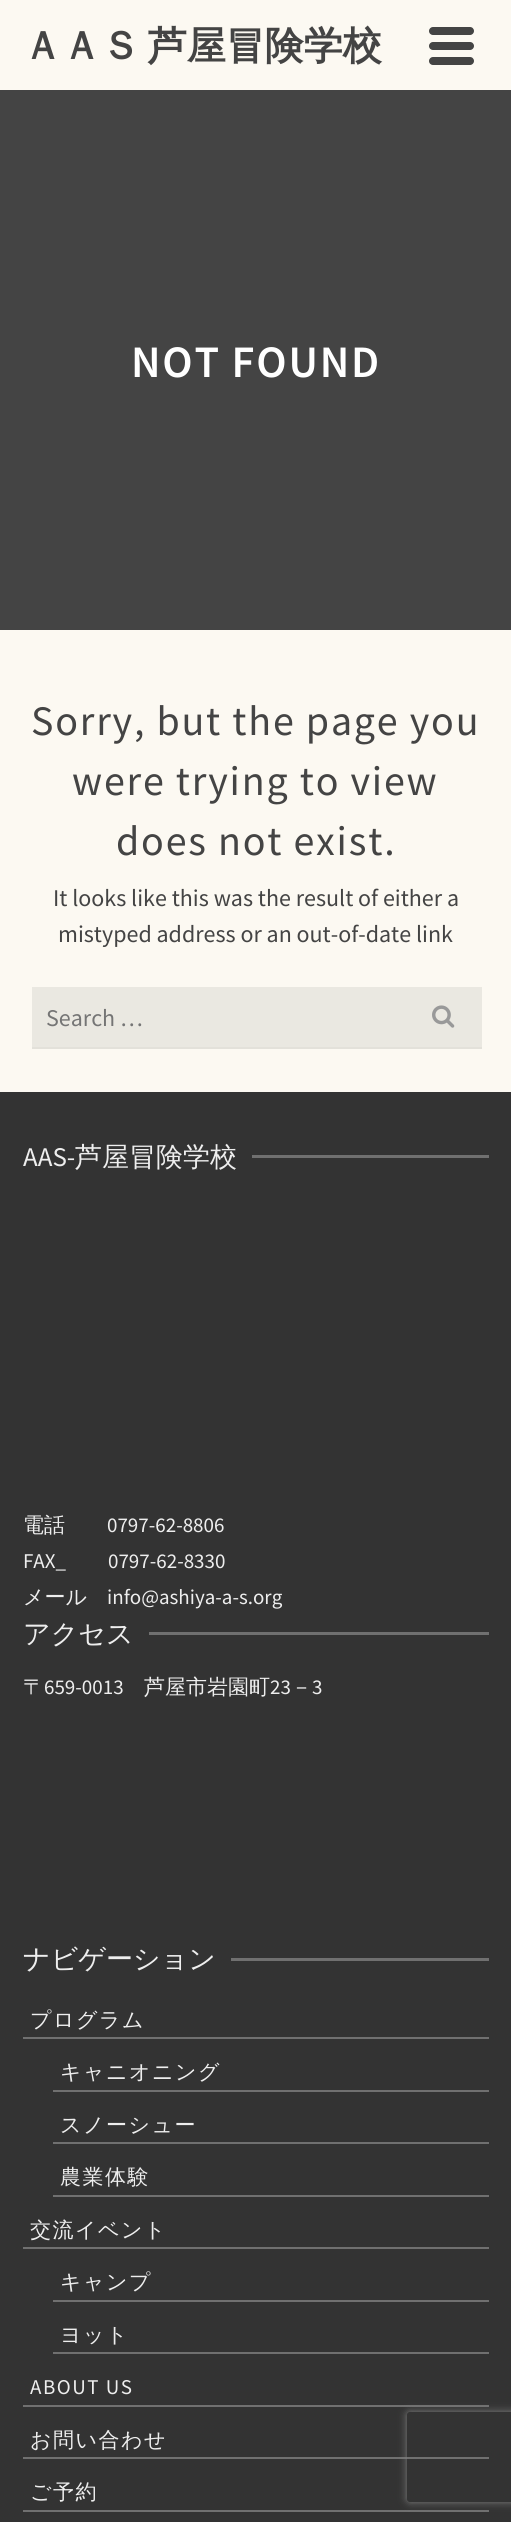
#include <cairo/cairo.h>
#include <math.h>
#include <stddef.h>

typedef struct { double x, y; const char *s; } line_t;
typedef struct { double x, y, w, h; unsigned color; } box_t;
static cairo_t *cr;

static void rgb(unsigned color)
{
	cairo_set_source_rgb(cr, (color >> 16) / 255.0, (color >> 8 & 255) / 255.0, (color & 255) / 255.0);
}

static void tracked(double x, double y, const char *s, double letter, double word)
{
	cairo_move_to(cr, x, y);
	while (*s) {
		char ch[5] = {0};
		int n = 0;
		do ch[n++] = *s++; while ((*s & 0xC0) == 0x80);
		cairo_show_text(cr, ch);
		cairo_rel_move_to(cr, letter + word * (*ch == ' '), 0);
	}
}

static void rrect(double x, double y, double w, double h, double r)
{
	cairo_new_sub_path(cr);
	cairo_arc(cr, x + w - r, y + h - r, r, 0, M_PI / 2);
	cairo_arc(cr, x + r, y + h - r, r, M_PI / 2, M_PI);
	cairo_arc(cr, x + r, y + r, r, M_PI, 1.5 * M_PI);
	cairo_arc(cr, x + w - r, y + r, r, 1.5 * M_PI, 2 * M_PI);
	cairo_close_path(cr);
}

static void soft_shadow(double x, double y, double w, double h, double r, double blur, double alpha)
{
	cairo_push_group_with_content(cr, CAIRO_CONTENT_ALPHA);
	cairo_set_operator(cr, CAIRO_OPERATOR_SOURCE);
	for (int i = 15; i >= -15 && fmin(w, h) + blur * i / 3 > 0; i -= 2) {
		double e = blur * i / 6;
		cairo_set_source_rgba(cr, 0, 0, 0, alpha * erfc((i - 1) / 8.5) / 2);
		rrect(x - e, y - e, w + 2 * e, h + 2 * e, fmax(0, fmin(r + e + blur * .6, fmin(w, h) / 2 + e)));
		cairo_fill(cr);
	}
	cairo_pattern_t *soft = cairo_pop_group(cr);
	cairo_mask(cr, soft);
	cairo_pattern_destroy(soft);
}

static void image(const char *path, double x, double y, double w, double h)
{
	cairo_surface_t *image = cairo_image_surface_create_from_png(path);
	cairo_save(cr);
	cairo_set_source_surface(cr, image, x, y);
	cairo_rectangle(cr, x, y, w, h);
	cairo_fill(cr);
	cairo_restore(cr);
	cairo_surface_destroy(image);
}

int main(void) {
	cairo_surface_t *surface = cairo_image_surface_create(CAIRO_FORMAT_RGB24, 511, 2522);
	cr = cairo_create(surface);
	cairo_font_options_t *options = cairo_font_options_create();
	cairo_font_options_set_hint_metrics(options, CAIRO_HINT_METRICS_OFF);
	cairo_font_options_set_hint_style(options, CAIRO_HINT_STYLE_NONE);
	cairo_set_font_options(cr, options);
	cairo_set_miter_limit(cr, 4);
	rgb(0xfcf9f2);
	cairo_paint(cr);
	rgb(0x444444);
	rrect(429, 27, 45, 8, 4);
	cairo_fill(cr);
	rrect(429, 42, 45, 8, 4);
	cairo_fill(cr);
	rrect(429, 57, 45, 8, 4);
	cairo_fill(cr);
	cairo_rectangle(cr, 0, 90, 511, 540);
	cairo_fill(cr);
	rgb(0xe3e1da);
	cairo_new_path(cr);
	cairo_move_to(cr, 32, 1047);
	cairo_line_to(cr, 32, 1049);
	cairo_line_to(cr, 482, 1049);
	cairo_line_to(cr, 482, 989);
	cairo_line_to(cr, 482, 1047);
	cairo_close_path(cr);
	cairo_fill(cr);
	rgb(0xeae8e1);
	cairo_rectangle(cr, 32, 987, 450, 60);
	cairo_fill(cr);
	image("img/1.png", 432, 1005, 23, 23);
	{
		static const box_t items[] = {
			{0, 1092, 511, 1430, 0x333333},
			{252, 1155, 237, 3, 0x707070},
			{149, 1632, 340, 3, 0x707070},
			{231, 1958, 258, 3, 0x707070},
			{23, 2037, 466, 2, 0x707070},
			{53, 2090, 436, 2, 0x707070},
			{53, 2142, 436, 2, 0x707070},
			{53, 2195, 436, 2, 0x707070},
			{23, 2247, 466, 2, 0x707070},
			{53, 2300, 436, 2, 0x707070},
			{53, 2352, 436, 2, 0x707070},
			{23, 2405, 466, 2, 0x707070},
			{23, 2457, 466, 2, 0x707070},
			{23, 2510, 466, 2, 0x707070},
		};
		for (size_t i = 0; i < sizeof items / sizeof *items; i++) {
			rgb(items[i].color);
			cairo_rectangle(cr, items[i].x, items[i].y, items[i].w, items[i].h);
			cairo_fill(cr);
		}
	}
	cairo_save(cr);
	cairo_set_fill_rule(cr, CAIRO_FILL_RULE_EVEN_ODD);
	cairo_new_path(cr);
	cairo_move_to(cr, 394, 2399);
	cairo_line_to(cr, 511, 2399);
	cairo_line_to(cr, 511, 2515);
	cairo_line_to(cr, 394, 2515);
	cairo_close_path(cr);
	cairo_move_to(cr, 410, 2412);
	cairo_line_to(cr, 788, 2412);
	cairo_curve_to(cr, 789.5, 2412, 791, 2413.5, 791, 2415);
	cairo_line_to(cr, 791, 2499);
	cairo_curve_to(cr, 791, 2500.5, 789.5, 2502, 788, 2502);
	cairo_line_to(cr, 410, 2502);
	cairo_curve_to(cr, 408.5, 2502, 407, 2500.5, 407, 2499);
	cairo_line_to(cr, 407, 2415);
	cairo_curve_to(cr, 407, 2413.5, 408.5, 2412, 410, 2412);
	cairo_close_path(cr);
	cairo_clip(cr);
	rgb(0x808080);
	soft_shadow(407, 2412, 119, 90, 3, 4, 1);
	cairo_restore(cr);
	cairo_select_font_face(cr, "WenQuanYi Zen Hei", CAIRO_FONT_SLANT_NORMAL, CAIRO_FONT_WEIGHT_BOLD);
	cairo_set_font_size(cr, 39);
	rgb(0x444444);
	tracked(23, 59, "ＡＡＳ 芦屋冒険学校", 0, -4);
	cairo_select_font_face(cr, "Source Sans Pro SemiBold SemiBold", CAIRO_FONT_SLANT_NORMAL, CAIRO_FONT_WEIGHT_NORMAL);
	cairo_set_font_size(cr, 45);
	rgb(0xffffff);
	tracked(131, 377, "NOT FOUND", 1.8, 0);
	cairo_select_font_face(cr, "Source Sans Pro", CAIRO_FONT_SLANT_NORMAL, CAIRO_FONT_WEIGHT_NORMAL);
	cairo_set_font_size(cr, 42);
	rgb(0x444444);
	{
		static const line_t items[] = {
			{31, 735, "Sorry, but the page you"},
			{72, 795, "were trying to view"},
			{116, 855, "does not exist."},
		};
		for (size_t i = 0; i < sizeof items / sizeof *items; i++) {
			tracked(items[i].x, items[i].y, items[i].s, 1.8, 0);
		}
	}
	cairo_set_font_size(cr, 24);
	cairo_move_to(cr, 53, 906);
	cairo_show_text(cr, "It looks like this was the result of either a");
	cairo_move_to(cr, 58, 942);
	cairo_show_text(cr, "mistyped address or an out-of-date link");
	rgb(0x757575);
	cairo_move_to(cr, 46, 1026);
	cairo_show_text(cr, "Search …");
	cairo_set_font_size(cr, 27);
	rgb(0xeeeeee);
	cairo_move_to(cr, 23, 1166);
	cairo_show_text(cr, "AAS-");
	cairo_select_font_face(cr, "WenQuanYi Zen Hei Medium", CAIRO_FONT_SLANT_NORMAL, CAIRO_FONT_WEIGHT_NORMAL);
	cairo_move_to(cr, 75, 1166);
	cairo_show_text(cr, "芦屋冒険学校");
	cairo_set_font_size(cr, 21);
	cairo_move_to(cr, 23, 1532);
	cairo_show_text(cr, "電話");
	cairo_select_font_face(cr, "Source Sans Pro", CAIRO_FONT_SLANT_NORMAL, CAIRO_FONT_WEIGHT_NORMAL);
	{
		static const line_t items[] = {
			{107, 1532, "0797-62-8806"},
			{23, 1568, "FAX_"},
			{108, 1568, "0797-62-8330"},
		};
		for (size_t i = 0; i < sizeof items / sizeof *items; i++) {
			cairo_move_to(cr, items[i].x, items[i].y);
			cairo_show_text(cr, items[i].s);
		}
	}
	cairo_select_font_face(cr, "WenQuanYi Zen Hei Medium", CAIRO_FONT_SLANT_NORMAL, CAIRO_FONT_WEIGHT_NORMAL);
	cairo_move_to(cr, 23, 1604);
	cairo_show_text(cr, "メール");
	cairo_select_font_face(cr, "Source Sans Pro", CAIRO_FONT_SLANT_NORMAL, CAIRO_FONT_WEIGHT_NORMAL);
	cairo_move_to(cr, 107, 1604);
	cairo_show_text(cr, "info@ashiya-a-s.org");
	cairo_select_font_face(cr, "WenQuanYi Zen Hei Medium", CAIRO_FONT_SLANT_NORMAL, CAIRO_FONT_WEIGHT_NORMAL);
	cairo_set_font_size(cr, 27);
	cairo_move_to(cr, 23, 1643);
	cairo_show_text(cr, "アクセス");
	cairo_set_font_size(cr, 21);
	cairo_move_to(cr, 23, 1694);
	cairo_show_text(cr, "〒");
	cairo_select_font_face(cr, "Source Sans Pro", CAIRO_FONT_SLANT_NORMAL, CAIRO_FONT_WEIGHT_NORMAL);
	cairo_move_to(cr, 44, 1694);
	cairo_show_text(cr, "659-0013");
	cairo_select_font_face(cr, "WenQuanYi Zen Hei Medium", CAIRO_FONT_SLANT_NORMAL, CAIRO_FONT_WEIGHT_NORMAL);
	cairo_move_to(cr, 144, 1694);
	cairo_show_text(cr, "芦屋市岩園町");
	cairo_select_font_face(cr, "Source Sans Pro", CAIRO_FONT_SLANT_NORMAL, CAIRO_FONT_WEIGHT_NORMAL);
	cairo_move_to(cr, 270, 1694);
	cairo_show_text(cr, "23");
	cairo_select_font_face(cr, "WenQuanYi Zen Hei Medium", CAIRO_FONT_SLANT_NORMAL, CAIRO_FONT_WEIGHT_NORMAL);
	cairo_move_to(cr, 291, 1694);
	cairo_show_text(cr, "－");
	cairo_select_font_face(cr, "Source Sans Pro", CAIRO_FONT_SLANT_NORMAL, CAIRO_FONT_WEIGHT_NORMAL);
	cairo_move_to(cr, 312, 1694);
	cairo_show_text(cr, "3");
	cairo_select_font_face(cr, "WenQuanYi Zen Hei Medium", CAIRO_FONT_SLANT_NORMAL, CAIRO_FONT_WEIGHT_NORMAL);
	cairo_set_font_size(cr, 27);
	cairo_move_to(cr, 23, 1968);
	cairo_show_text(cr, "ナビゲーション");
	cairo_set_font_size(cr, 21);
	{
		static const line_t items[] = {
			{30, 2027, "プログラム"},
			{60, 2079, "キャニオニング"},
			{60, 2132, "スノーシュー"},
			{60, 2184, "農業体験"},
			{30, 2237, "交流イベント"},
			{60, 2289, "キャンプ"},
			{60, 2342, "ヨット"},
		};
		for (size_t i = 0; i < sizeof items / sizeof *items; i++) {
			tracked(items[i].x, items[i].y, items[i].s, 1.5, 0);
		}
	}
	cairo_select_font_face(cr, "Source Sans Pro", CAIRO_FONT_SLANT_NORMAL, CAIRO_FONT_WEIGHT_NORMAL);
	tracked(30, 2394, "ABOUT US", 1.5, 0);
	cairo_select_font_face(cr, "WenQuanYi Zen Hei Medium", CAIRO_FONT_SLANT_NORMAL, CAIRO_FONT_WEIGHT_NORMAL);
	tracked(30, 2447, "お問い合わせ", 1.5, 0);
	tracked(30, 2499, "ご予約", 1.5, 0);
	cairo_surface_write_to_png(surface, "page.png");
	cairo_font_options_destroy(options);
	cairo_destroy(cr);
	cairo_surface_destroy(surface);
	return 0;
}
